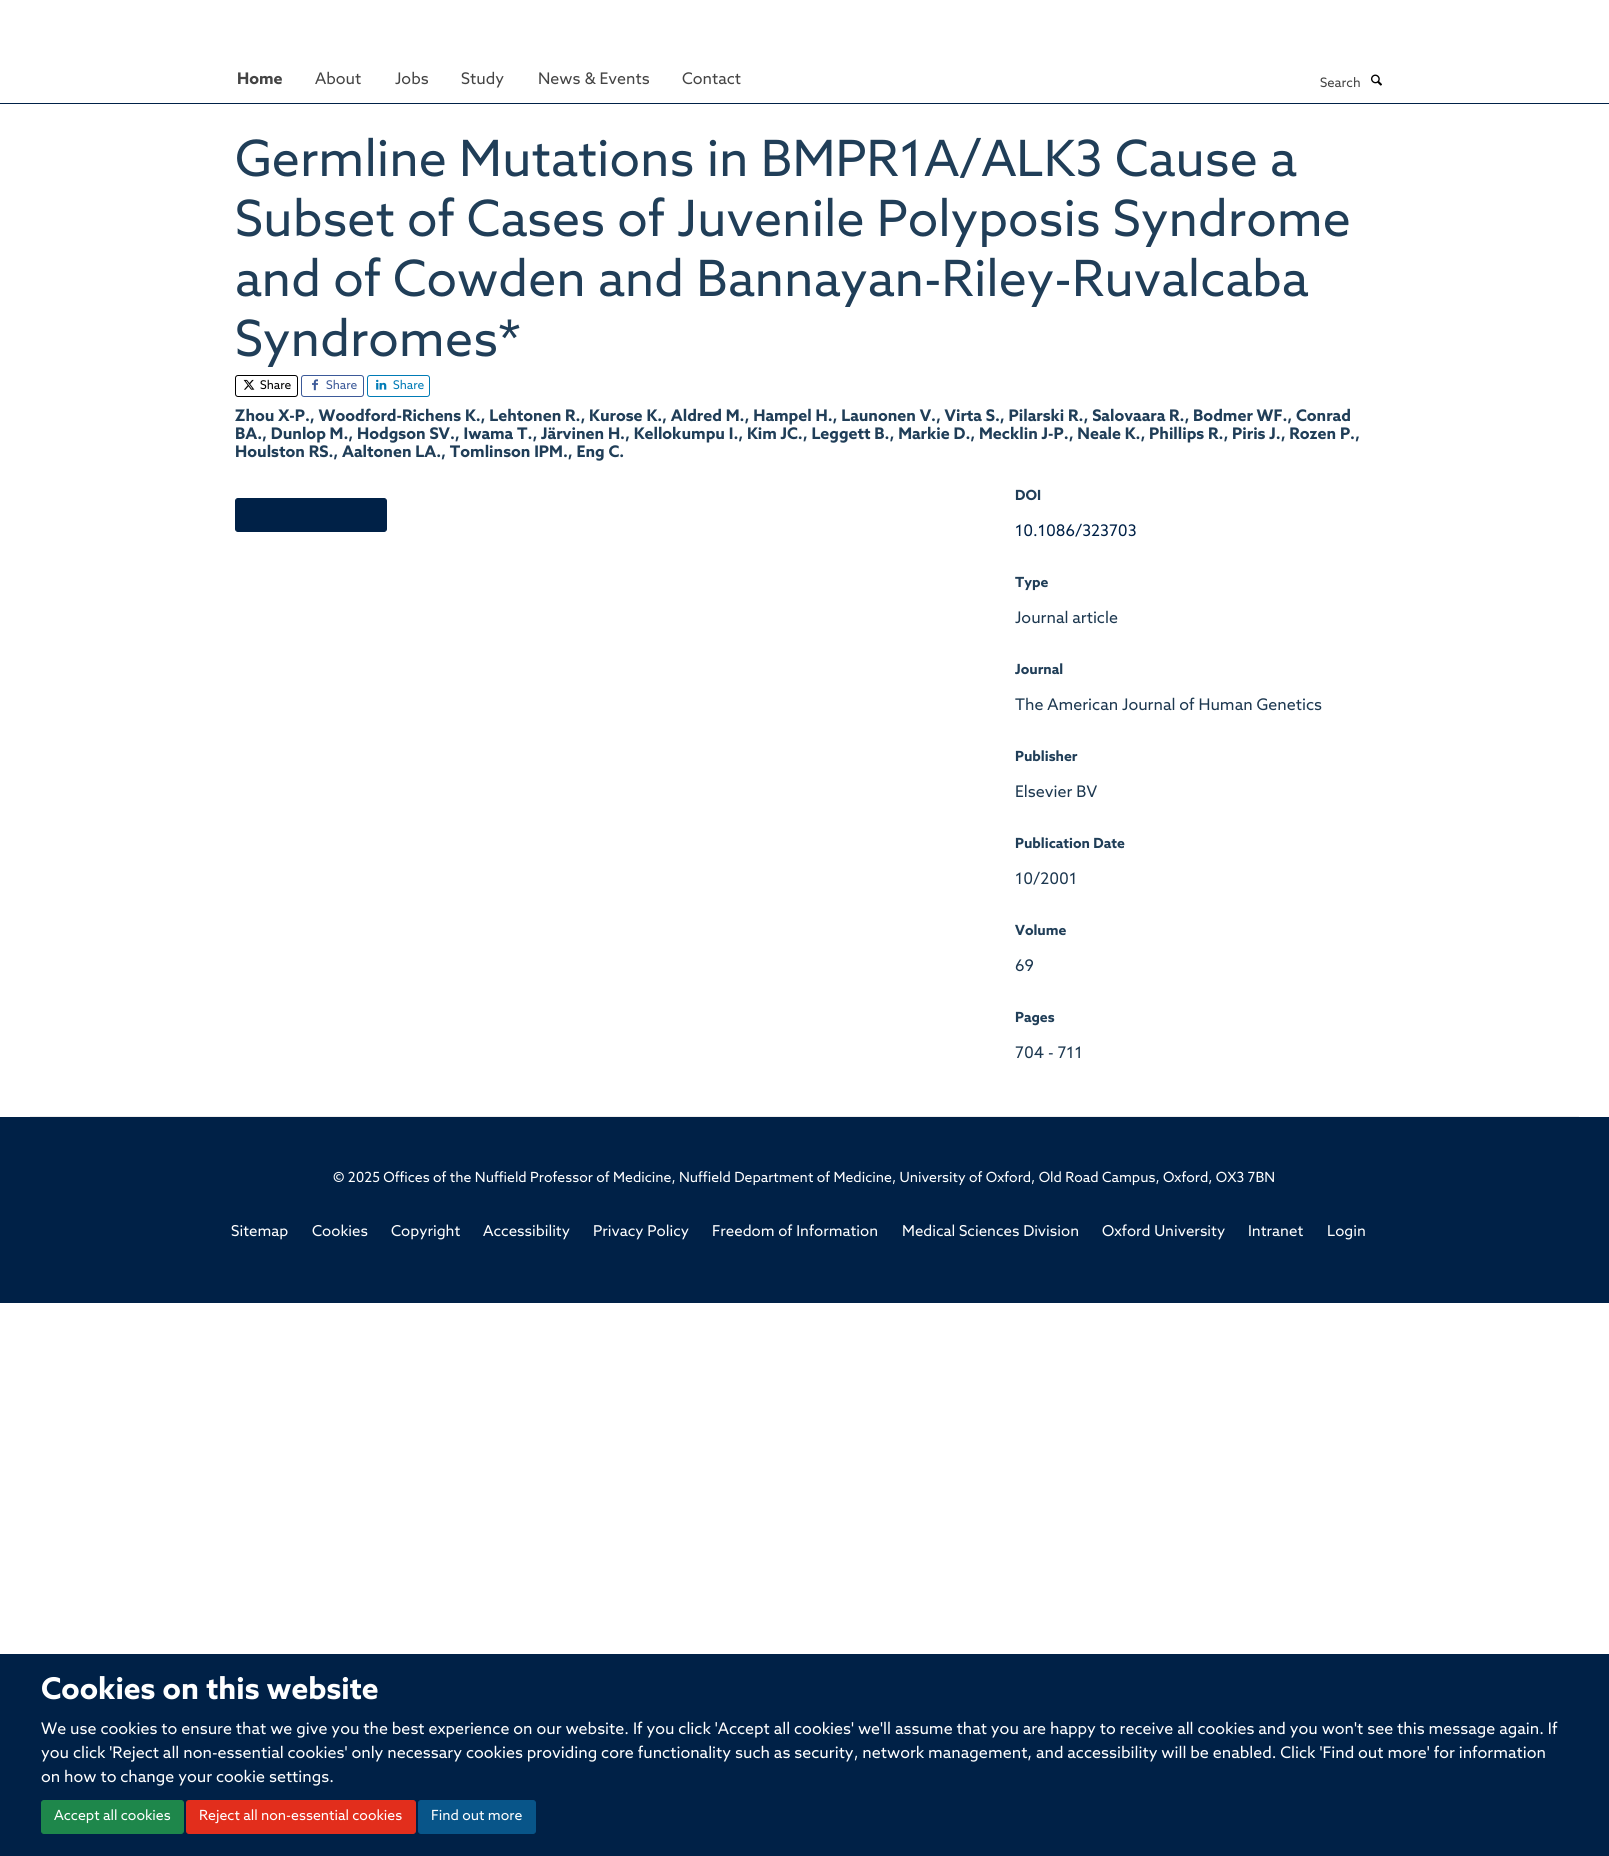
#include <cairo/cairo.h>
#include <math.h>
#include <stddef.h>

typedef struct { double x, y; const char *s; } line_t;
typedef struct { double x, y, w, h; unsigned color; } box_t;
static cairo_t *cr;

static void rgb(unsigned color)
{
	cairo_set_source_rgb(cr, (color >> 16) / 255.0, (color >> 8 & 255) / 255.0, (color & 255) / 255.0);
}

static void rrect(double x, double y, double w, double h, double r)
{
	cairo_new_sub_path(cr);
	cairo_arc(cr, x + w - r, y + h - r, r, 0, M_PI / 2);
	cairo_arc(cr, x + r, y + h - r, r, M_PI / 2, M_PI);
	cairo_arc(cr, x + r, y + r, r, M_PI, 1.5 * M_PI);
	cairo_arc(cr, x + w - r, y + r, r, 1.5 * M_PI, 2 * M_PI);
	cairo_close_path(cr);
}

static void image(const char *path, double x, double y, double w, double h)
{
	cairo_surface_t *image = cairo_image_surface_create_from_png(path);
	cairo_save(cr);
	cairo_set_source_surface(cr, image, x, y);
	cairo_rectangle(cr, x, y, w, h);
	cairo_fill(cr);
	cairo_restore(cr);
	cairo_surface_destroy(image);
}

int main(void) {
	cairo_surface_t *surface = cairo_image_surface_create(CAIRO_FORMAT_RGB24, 1609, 1856);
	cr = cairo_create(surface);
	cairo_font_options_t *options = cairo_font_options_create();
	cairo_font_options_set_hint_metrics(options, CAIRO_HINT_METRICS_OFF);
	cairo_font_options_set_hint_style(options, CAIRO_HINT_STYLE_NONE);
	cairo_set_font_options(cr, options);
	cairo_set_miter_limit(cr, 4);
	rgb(0xffffff);
	cairo_paint(cr);
	rgb(0x002147);
	cairo_rectangle(cr, 0, 103, 1609, 1);
	cairo_fill(cr);
	image("img/1.png", 1371, 74, 11, 12);
	rrect(235.5, 375.5, 62, 21, 2.5);
	rgb(0x000000);
	cairo_set_line_width(cr, 1);
	cairo_stroke(cr);
	image("img/2.png", 243, 379, 12, 11);
	rrect(301.5, 375.5, 62, 21, 2.5);
	rgb(0x3b5998);
	cairo_stroke(cr);
	image("img/3.png", 312, 379, 6, 12);
	rrect(367.5, 375.5, 62, 21, 2.5);
	rgb(0x007bb6);
	cairo_stroke(cr);
	image("img/4.png", 376, 379, 11, 11);
	rgb(0x002147);
	rrect(235.5, 498.5, 151, 33, 2.5);
	cairo_fill_preserve(cr);
	cairo_stroke(cr);
	{
		static const box_t items[] = {
			{30, 1116, 1549, 1, 0xeeeeee},
			{0, 1117, 1609, 186, 0x002147},
			{0, 1654, 1609, 202, 0x002147},
		};
		for (size_t i = 0; i < sizeof items / sizeof *items; i++) {
			rgb(items[i].color);
			cairo_rectangle(cr, items[i].x, items[i].y, items[i].w, items[i].h);
			cairo_fill(cr);
		}
	}
	rgb(0x1e874b);
	rrect(41.5, 1800.5, 142, 33, 2.5);
	cairo_fill_preserve(cr);
	cairo_stroke(cr);
	rgb(0xe22e1c);
	rrect(186.5, 1800.5, 229, 33, 2.5);
	cairo_fill_preserve(cr);
	cairo_stroke(cr);
	rgb(0x085589);
	rrect(418.5, 1800.5, 117, 33, 2.5);
	cairo_fill_preserve(cr);
	cairo_stroke(cr);
	cairo_select_font_face(cr, "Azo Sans", CAIRO_FONT_SLANT_NORMAL, CAIRO_FONT_WEIGHT_BOLD);
	cairo_set_font_size(cr, 16);
	rgb(0x444444);
	cairo_move_to(cr, 237, 84);
	cairo_show_text(cr, "Home");
	cairo_select_font_face(cr, "Azo Sans", CAIRO_FONT_SLANT_NORMAL, CAIRO_FONT_WEIGHT_NORMAL);
	{
		static const line_t items[] = {
			{315, 84, "About"},
			{395, 84, "Jobs"},
			{461, 84, "Study"},
			{538, 84, "News & Events"},
			{682, 84, "Contact"},
		};
		for (size_t i = 0; i < sizeof items / sizeof *items; i++) {
			cairo_move_to(cr, items[i].x, items[i].y);
			cairo_show_text(cr, items[i].s);
		}
	}
	cairo_set_font_size(cr, 13);
	cairo_move_to(cr, 1320, 87);
	cairo_show_text(cr, "Search");
	cairo_set_font_size(cr, 50);
	rgb(0x203e58);
	{
		static const line_t items[] = {
			{235, 176, "Germline Mutations in BMPR1A/ALK3 Cause a"},
			{235, 236, "Subset of Cases of Juvenile Polyposis Syndrome"},
			{235, 296, "and of Cowden and Bannayan-Riley-Ruvalcaba"},
			{235, 356, "Syndromes*"},
		};
		for (size_t i = 0; i < sizeof items / sizeof *items; i++) {
			cairo_move_to(cr, items[i].x, items[i].y);
			cairo_show_text(cr, items[i].s);
		}
	}
	cairo_set_font_size(cr, 12);
	rgb(0x000000);
	cairo_move_to(cr, 260, 389);
	cairo_show_text(cr, "Share");
	rgb(0x3b5998);
	cairo_move_to(cr, 326, 389);
	cairo_show_text(cr, "Share");
	rgb(0x007bb6);
	cairo_move_to(cr, 393, 389);
	cairo_show_text(cr, "Share");
	cairo_select_font_face(cr, "Azo Sans", CAIRO_FONT_SLANT_NORMAL, CAIRO_FONT_WEIGHT_BOLD);
	cairo_set_font_size(cr, 16);
	rgb(0x203e58);
	{
		static const line_t items[] = {
			{235, 421, "Zhou X-P., Woodford-Richens K., Lehtonen R., Kurose K., Aldred M., Hampel H., Launonen V., Virta S., Pilarski R., Salovaara R., Bodmer WF., Conrad"},
			{235, 439, "BA., Dunlop M., Hodgson SV., Iwama T., Järvinen H., Kellokumpu I., Kim JC., Leggett B., Markie D., Mecklin J-P., Neale K., Phillips R., Piris J., Rozen P.,"},
			{235, 457, "Houlston RS., Aaltonen LA., Tomlinson IPM., Eng C."},
		};
		for (size_t i = 0; i < sizeof items / sizeof *items; i++) {
			cairo_move_to(cr, items[i].x, items[i].y);
			cairo_show_text(cr, items[i].s);
		}
	}
	cairo_set_font_size(cr, 14);
	cairo_move_to(cr, 1015, 500);
	cairo_show_text(cr, "DOI");
	cairo_select_font_face(cr, "Azo Sans", CAIRO_FONT_SLANT_NORMAL, CAIRO_FONT_WEIGHT_NORMAL);
	cairo_set_font_size(cr, 16);
	rgb(0x002147);
	cairo_move_to(cr, 1015, 536);
	cairo_show_text(cr, "10.1086/323703");
	cairo_select_font_face(cr, "Azo Sans", CAIRO_FONT_SLANT_NORMAL, CAIRO_FONT_WEIGHT_BOLD);
	cairo_set_font_size(cr, 14);
	rgb(0x203e58);
	cairo_move_to(cr, 1015, 587);
	cairo_show_text(cr, "Type");
	cairo_select_font_face(cr, "Azo Sans", CAIRO_FONT_SLANT_NORMAL, CAIRO_FONT_WEIGHT_NORMAL);
	cairo_set_font_size(cr, 16);
	rgb(0x1d3850);
	cairo_move_to(cr, 1015, 623);
	cairo_show_text(cr, "Journal article");
	cairo_select_font_face(cr, "Azo Sans", CAIRO_FONT_SLANT_NORMAL, CAIRO_FONT_WEIGHT_BOLD);
	cairo_set_font_size(cr, 14);
	rgb(0x203e58);
	cairo_move_to(cr, 1015, 674);
	cairo_show_text(cr, "Journal");
	cairo_select_font_face(cr, "Azo Sans", CAIRO_FONT_SLANT_NORMAL, CAIRO_FONT_WEIGHT_NORMAL);
	cairo_set_font_size(cr, 16);
	rgb(0x1d3850);
	cairo_move_to(cr, 1015, 710);
	cairo_show_text(cr, "The American Journal of Human Genetics");
	cairo_select_font_face(cr, "Azo Sans", CAIRO_FONT_SLANT_NORMAL, CAIRO_FONT_WEIGHT_BOLD);
	cairo_set_font_size(cr, 14);
	rgb(0x203e58);
	cairo_move_to(cr, 1015, 761);
	cairo_show_text(cr, "Publisher");
	cairo_select_font_face(cr, "Azo Sans", CAIRO_FONT_SLANT_NORMAL, CAIRO_FONT_WEIGHT_NORMAL);
	cairo_set_font_size(cr, 16);
	rgb(0x1d3850);
	cairo_move_to(cr, 1015, 797);
	cairo_show_text(cr, "Elsevier BV");
	cairo_select_font_face(cr, "Azo Sans", CAIRO_FONT_SLANT_NORMAL, CAIRO_FONT_WEIGHT_BOLD);
	cairo_set_font_size(cr, 14);
	rgb(0x203e58);
	cairo_move_to(cr, 1015, 848);
	cairo_show_text(cr, "Publication Date");
	cairo_select_font_face(cr, "Azo Sans", CAIRO_FONT_SLANT_NORMAL, CAIRO_FONT_WEIGHT_NORMAL);
	cairo_set_font_size(cr, 16);
	rgb(0x1d3850);
	cairo_move_to(cr, 1015, 884);
	cairo_show_text(cr, "10/2001");
	cairo_select_font_face(cr, "Azo Sans", CAIRO_FONT_SLANT_NORMAL, CAIRO_FONT_WEIGHT_BOLD);
	cairo_set_font_size(cr, 14);
	rgb(0x203e58);
	cairo_move_to(cr, 1015, 935);
	cairo_show_text(cr, "Volume");
	cairo_select_font_face(cr, "Azo Sans", CAIRO_FONT_SLANT_NORMAL, CAIRO_FONT_WEIGHT_NORMAL);
	cairo_set_font_size(cr, 16);
	rgb(0x1d3850);
	cairo_move_to(cr, 1015, 971);
	cairo_show_text(cr, "69");
	cairo_select_font_face(cr, "Azo Sans", CAIRO_FONT_SLANT_NORMAL, CAIRO_FONT_WEIGHT_BOLD);
	cairo_set_font_size(cr, 14);
	rgb(0x203e58);
	cairo_move_to(cr, 1015, 1022);
	cairo_show_text(cr, "Pages");
	cairo_select_font_face(cr, "Azo Sans", CAIRO_FONT_SLANT_NORMAL, CAIRO_FONT_WEIGHT_NORMAL);
	cairo_set_font_size(cr, 16);
	rgb(0x1d3850);
	cairo_move_to(cr, 1015, 1058);
	cairo_show_text(cr, "704 - 711");
	cairo_set_font_size(cr, 14);
	rgb(0xffffff);
	cairo_move_to(cr, 333, 1182);
	cairo_show_text(cr, "© 2025 Offices of the Nuffield Professor of Medicine, Nuffield Department of Medicine, University of Oxford, Old Road Campus, Oxford, OX3 7BN");
	cairo_set_font_size(cr, 15);
	{
		static const line_t items[] = {
			{231, 1236, "Sitemap"},
			{312, 1236, "Cookies"},
			{391, 1236, "Copyright"},
			{483, 1236, "Accessibility"},
			{593, 1236, "Privacy Policy"},
			{712, 1236, "Freedom of Information"},
			{902, 1236, "Medical Sciences Division"},
			{1102, 1236, "Oxford University"},
			{1248, 1236, "Intranet"},
			{1327, 1236, "Login"},
		};
		for (size_t i = 0; i < sizeof items / sizeof *items; i++) {
			cairo_move_to(cr, items[i].x, items[i].y);
			cairo_show_text(cr, items[i].s);
		}
	}
	cairo_select_font_face(cr, "Azo Sans", CAIRO_FONT_SLANT_NORMAL, CAIRO_FONT_WEIGHT_BOLD);
	cairo_set_font_size(cr, 30);
	cairo_move_to(cr, 41, 1699);
	cairo_show_text(cr, "Cookies on this website");
	cairo_select_font_face(cr, "Azo Sans", CAIRO_FONT_SLANT_NORMAL, CAIRO_FONT_WEIGHT_NORMAL);
	cairo_set_font_size(cr, 16);
	{
		static const line_t items[] = {
			{41, 1734, "We use cookies to ensure that we give you the best experience on our website. If you click 'Accept all cookies' we'll assume that you are happy to receive all cookies and you won't see this message again. If"},
			{41, 1758, "you click 'Reject all non-essential cookies' only necessary cookies providing core functionality such as security, network management, and accessibility will be enabled. Click 'Find out more' for information"},
			{41, 1782, "on how to change your cookie settings."},
		};
		for (size_t i = 0; i < sizeof items / sizeof *items; i++) {
			cairo_move_to(cr, items[i].x, items[i].y);
			cairo_show_text(cr, items[i].s);
		}
	}
	cairo_set_font_size(cr, 14);
	{
		static const line_t items[] = {
			{54, 1820, "Accept all cookies"},
			{199, 1820, "Reject all non-essential cookies"},
			{431, 1820, "Find out more"},
		};
		for (size_t i = 0; i < sizeof items / sizeof *items; i++) {
			cairo_move_to(cr, items[i].x, items[i].y);
			cairo_show_text(cr, items[i].s);
		}
	}
	cairo_surface_write_to_png(surface, "page.png");
	cairo_font_options_destroy(options);
	cairo_destroy(cr);
	cairo_surface_destroy(surface);
	return 0;
}
